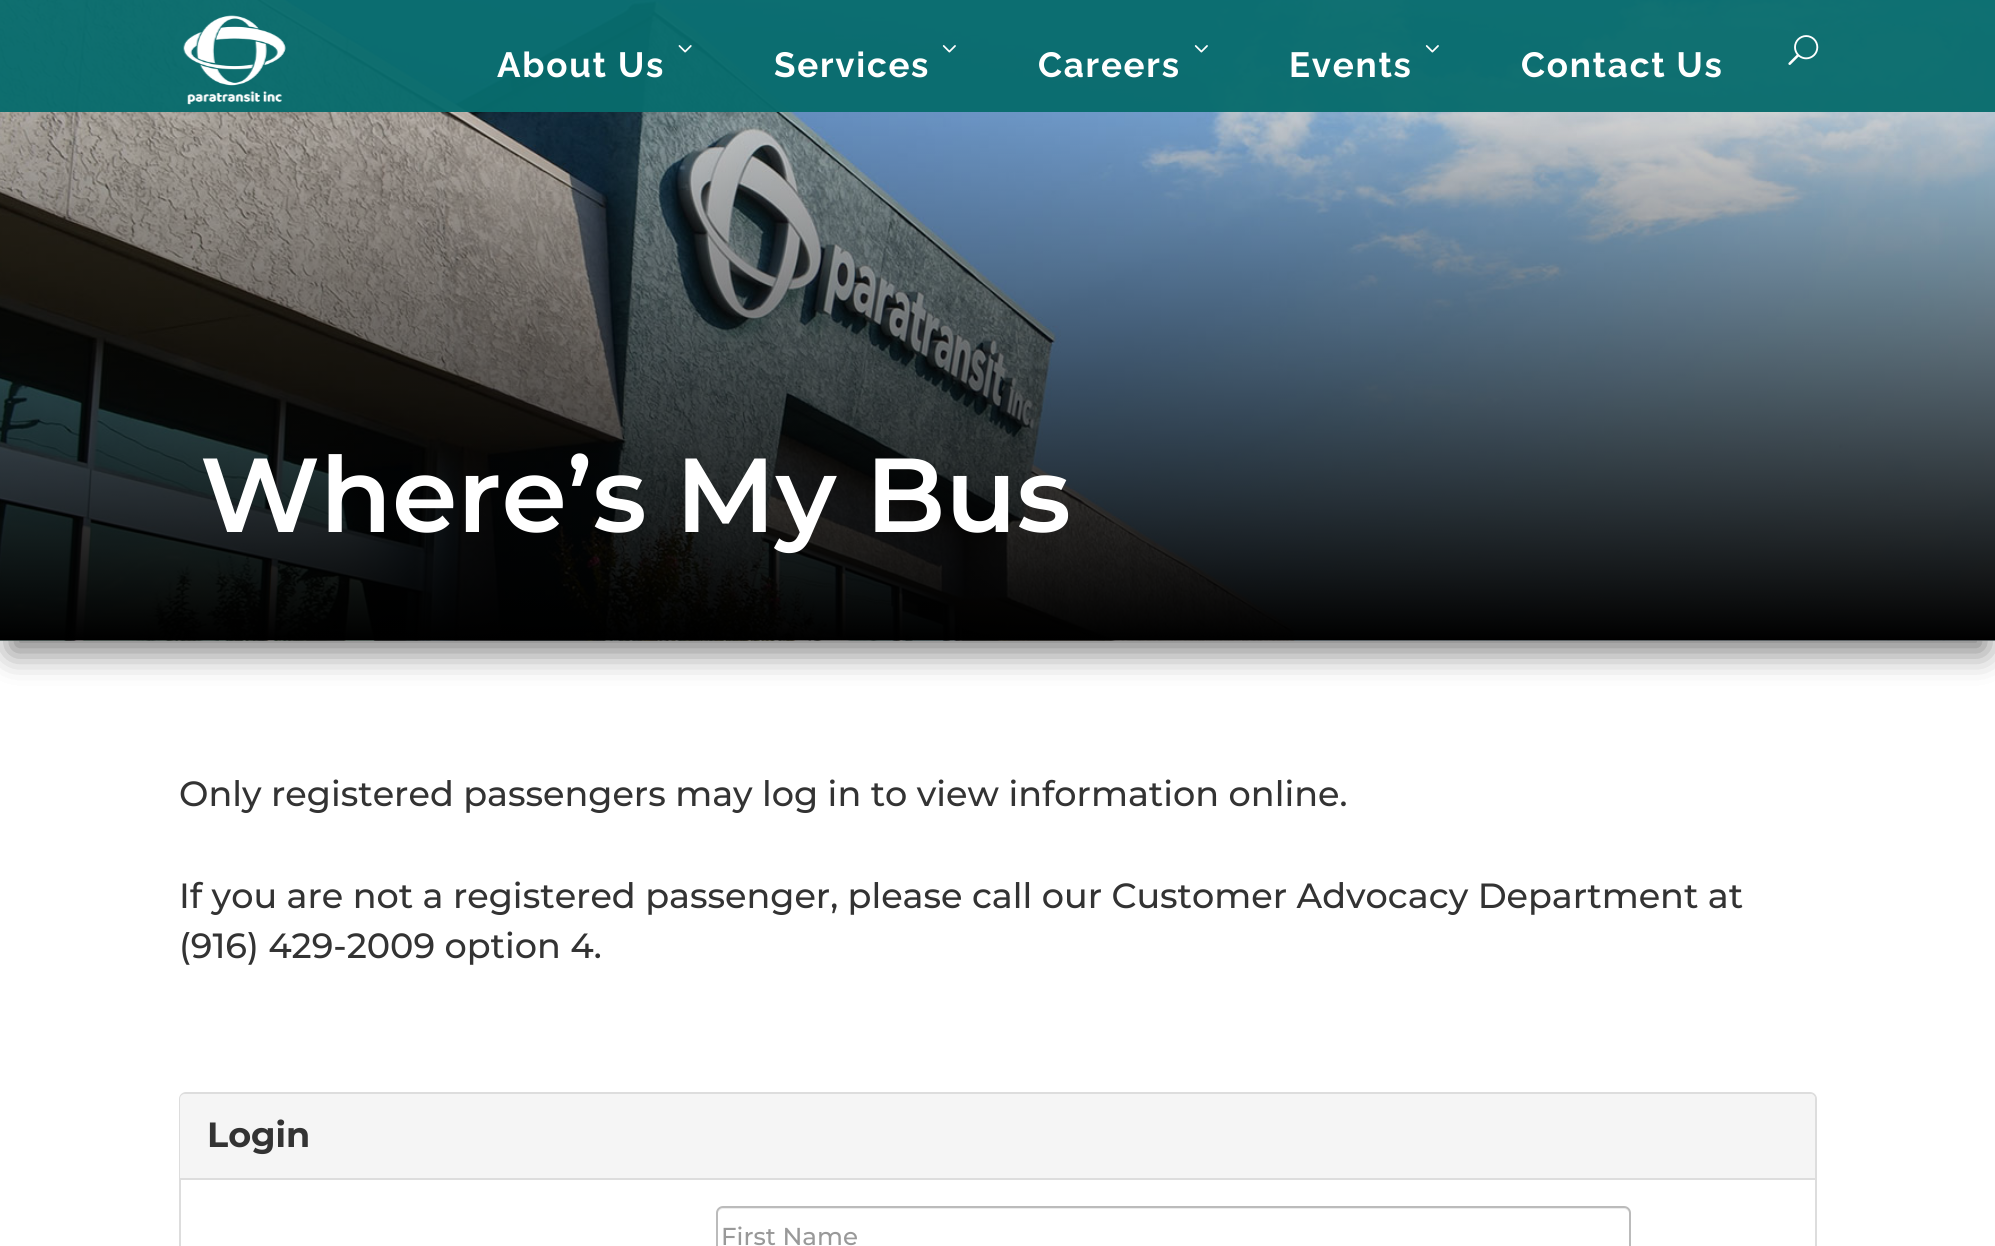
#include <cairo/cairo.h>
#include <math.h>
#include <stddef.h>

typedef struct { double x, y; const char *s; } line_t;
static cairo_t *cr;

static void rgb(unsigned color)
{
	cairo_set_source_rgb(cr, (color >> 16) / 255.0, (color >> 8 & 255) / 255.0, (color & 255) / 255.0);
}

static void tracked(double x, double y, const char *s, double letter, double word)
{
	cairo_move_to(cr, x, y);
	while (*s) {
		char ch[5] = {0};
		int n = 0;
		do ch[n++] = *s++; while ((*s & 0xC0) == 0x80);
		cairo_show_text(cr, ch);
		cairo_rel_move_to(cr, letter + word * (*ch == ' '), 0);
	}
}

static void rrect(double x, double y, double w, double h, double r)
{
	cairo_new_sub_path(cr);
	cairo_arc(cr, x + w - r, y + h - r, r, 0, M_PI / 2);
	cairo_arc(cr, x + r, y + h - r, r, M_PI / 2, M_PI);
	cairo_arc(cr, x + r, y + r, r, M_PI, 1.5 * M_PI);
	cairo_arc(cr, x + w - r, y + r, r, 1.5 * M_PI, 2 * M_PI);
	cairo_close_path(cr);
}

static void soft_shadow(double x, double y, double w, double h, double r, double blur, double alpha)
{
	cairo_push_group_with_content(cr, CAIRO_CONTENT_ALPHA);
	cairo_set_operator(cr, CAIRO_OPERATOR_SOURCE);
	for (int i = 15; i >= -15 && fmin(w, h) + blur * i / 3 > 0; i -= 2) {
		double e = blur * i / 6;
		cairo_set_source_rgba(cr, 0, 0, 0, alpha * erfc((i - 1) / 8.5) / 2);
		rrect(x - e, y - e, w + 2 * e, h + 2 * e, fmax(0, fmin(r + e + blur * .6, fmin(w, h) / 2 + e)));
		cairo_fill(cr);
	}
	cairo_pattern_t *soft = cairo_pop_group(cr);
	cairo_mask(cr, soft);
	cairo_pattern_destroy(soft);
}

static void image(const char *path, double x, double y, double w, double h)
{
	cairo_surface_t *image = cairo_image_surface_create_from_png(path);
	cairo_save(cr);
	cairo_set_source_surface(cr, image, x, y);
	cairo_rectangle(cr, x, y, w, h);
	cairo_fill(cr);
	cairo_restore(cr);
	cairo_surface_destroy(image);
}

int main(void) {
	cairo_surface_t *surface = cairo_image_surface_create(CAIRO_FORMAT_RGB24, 1995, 1246);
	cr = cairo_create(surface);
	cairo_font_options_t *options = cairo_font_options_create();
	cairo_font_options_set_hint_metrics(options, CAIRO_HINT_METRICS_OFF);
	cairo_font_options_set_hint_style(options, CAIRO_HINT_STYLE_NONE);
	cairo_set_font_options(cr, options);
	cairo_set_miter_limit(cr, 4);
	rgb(0xffffff);
	cairo_paint(cr);
	rgb(0x000000);
	soft_shadow(11, 32, 1974, 619, 0, 16, 0.3);
	soft_shadow(11, 32, 1974, 619, 0, 16, 0.3);
	image("img/7.png", 0, 0, 1995, 641);
	cairo_set_source_rgba(cr, 0.031, 0.42, 0.427, 0.96);
	cairo_rectangle(cr, 0, 0, 1995, 112);
	cairo_fill(cr);
	image("img/1.png", 183, 15, 103, 90);
	image("img/2.png", 678, 45, 14, 8);
	image("img/3.png", 942, 45, 14, 8);
	image("img/4.png", 1194, 45, 14, 8);
	image("img/5.png", 1425, 45, 14, 8);
	image("img/6.png", 1788, 35, 31, 30);
	rrect(180, 1093, 1636, 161, 6);
	rgb(0xdddddd);
	cairo_stroke(cr);
	rgb(0xf5f5f5);
	cairo_new_path(cr);
	cairo_move_to(cr, 185, 1094);
	cairo_line_to(cr, 1810, 1094);
	cairo_curve_to(cr, 1813, 1094, 1815, 1096, 1815, 1099);
	cairo_line_to(cr, 1815, 1180);
	cairo_line_to(cr, 180, 1180);
	cairo_line_to(cr, 180, 1099);
	cairo_curve_to(cr, 180, 1096, 182, 1094, 185, 1094);
	cairo_close_path(cr);
	cairo_fill(cr);
	rgb(0xdddddd);
	cairo_rectangle(cr, 180, 1178, 1635, 2);
	cairo_fill(cr);
	rgb(0xececec);
	cairo_new_path(cr);
	cairo_move_to(cr, 723, 1209);
	cairo_line_to(cr, 1624, 1209);
	cairo_curve_to(cr, 1627, 1209, 1629, 1212, 1629, 1214);
	cairo_curve_to(cr, 1629, 1211, 1627, 1208, 1624, 1208);
	cairo_line_to(cr, 723, 1208);
	cairo_curve_to(cr, 720, 1208, 718, 1211, 718, 1214);
	cairo_curve_to(cr, 718, 1212, 720, 1209, 723, 1209);
	cairo_close_path(cr);
	cairo_fill(cr);
	rrect(717, 1207, 913, 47, 6);
	rgb(0xbbbbbb);
	cairo_stroke(cr);
	cairo_select_font_face(cr, "Raleway", CAIRO_FONT_SLANT_NORMAL, CAIRO_FONT_WEIGHT_BOLD);
	cairo_set_font_size(cr, 35);
	rgb(0xffffff);
	{
		static const line_t items[] = {
			{497, 77, "About Us"},
			{774, 77, "Services"},
			{1038, 77, "Careers"},
			{1289, 77, "Events"},
			{1521, 77, "Contact Us"},
		};
		for (size_t i = 0; i < sizeof items / sizeof *items; i++) {
			tracked(items[i].x, items[i].y, items[i].s, 1.75, 0);
		}
	}
	cairo_select_font_face(cr, "Montserrat SemiBold", CAIRO_FONT_SLANT_NORMAL, CAIRO_FONT_WEIGHT_NORMAL);
	cairo_set_font_size(cr, 105);
	cairo_move_to(cr, 200, 532);
	cairo_show_text(cr, "Where’s My Bus");
	cairo_select_font_face(cr, "Montserrat Medium", CAIRO_FONT_SLANT_NORMAL, CAIRO_FONT_WEIGHT_NORMAL);
	cairo_set_font_size(cr, 35);
	rgb(0x333333);
	{
		static const line_t items[] = {
			{179, 806, "Only registered passengers may log in to view information online."},
			{179, 908, "If you are not a registered passenger, please call our Customer Advocacy Department at"},
			{179, 958, "(916) 429-2009 option 4."},
		};
		for (size_t i = 0; i < sizeof items / sizeof *items; i++) {
			cairo_move_to(cr, items[i].x, items[i].y);
			cairo_show_text(cr, items[i].s);
		}
	}
	cairo_select_font_face(cr, "Montserrat", CAIRO_FONT_SLANT_NORMAL, CAIRO_FONT_WEIGHT_BOLD);
	cairo_move_to(cr, 207, 1147);
	cairo_show_text(cr, "Login");
	cairo_select_font_face(cr, "Montserrat Medium", CAIRO_FONT_SLANT_NORMAL, CAIRO_FONT_WEIGHT_NORMAL);
	cairo_set_font_size(cr, 24.5);
	rgb(0x999999);
	cairo_move_to(cr, 721, 1245);
	cairo_show_text(cr, "First Name");
	cairo_surface_write_to_png(surface, "page.png");
	cairo_font_options_destroy(options);
	cairo_destroy(cr);
	cairo_surface_destroy(surface);
	return 0;
}
